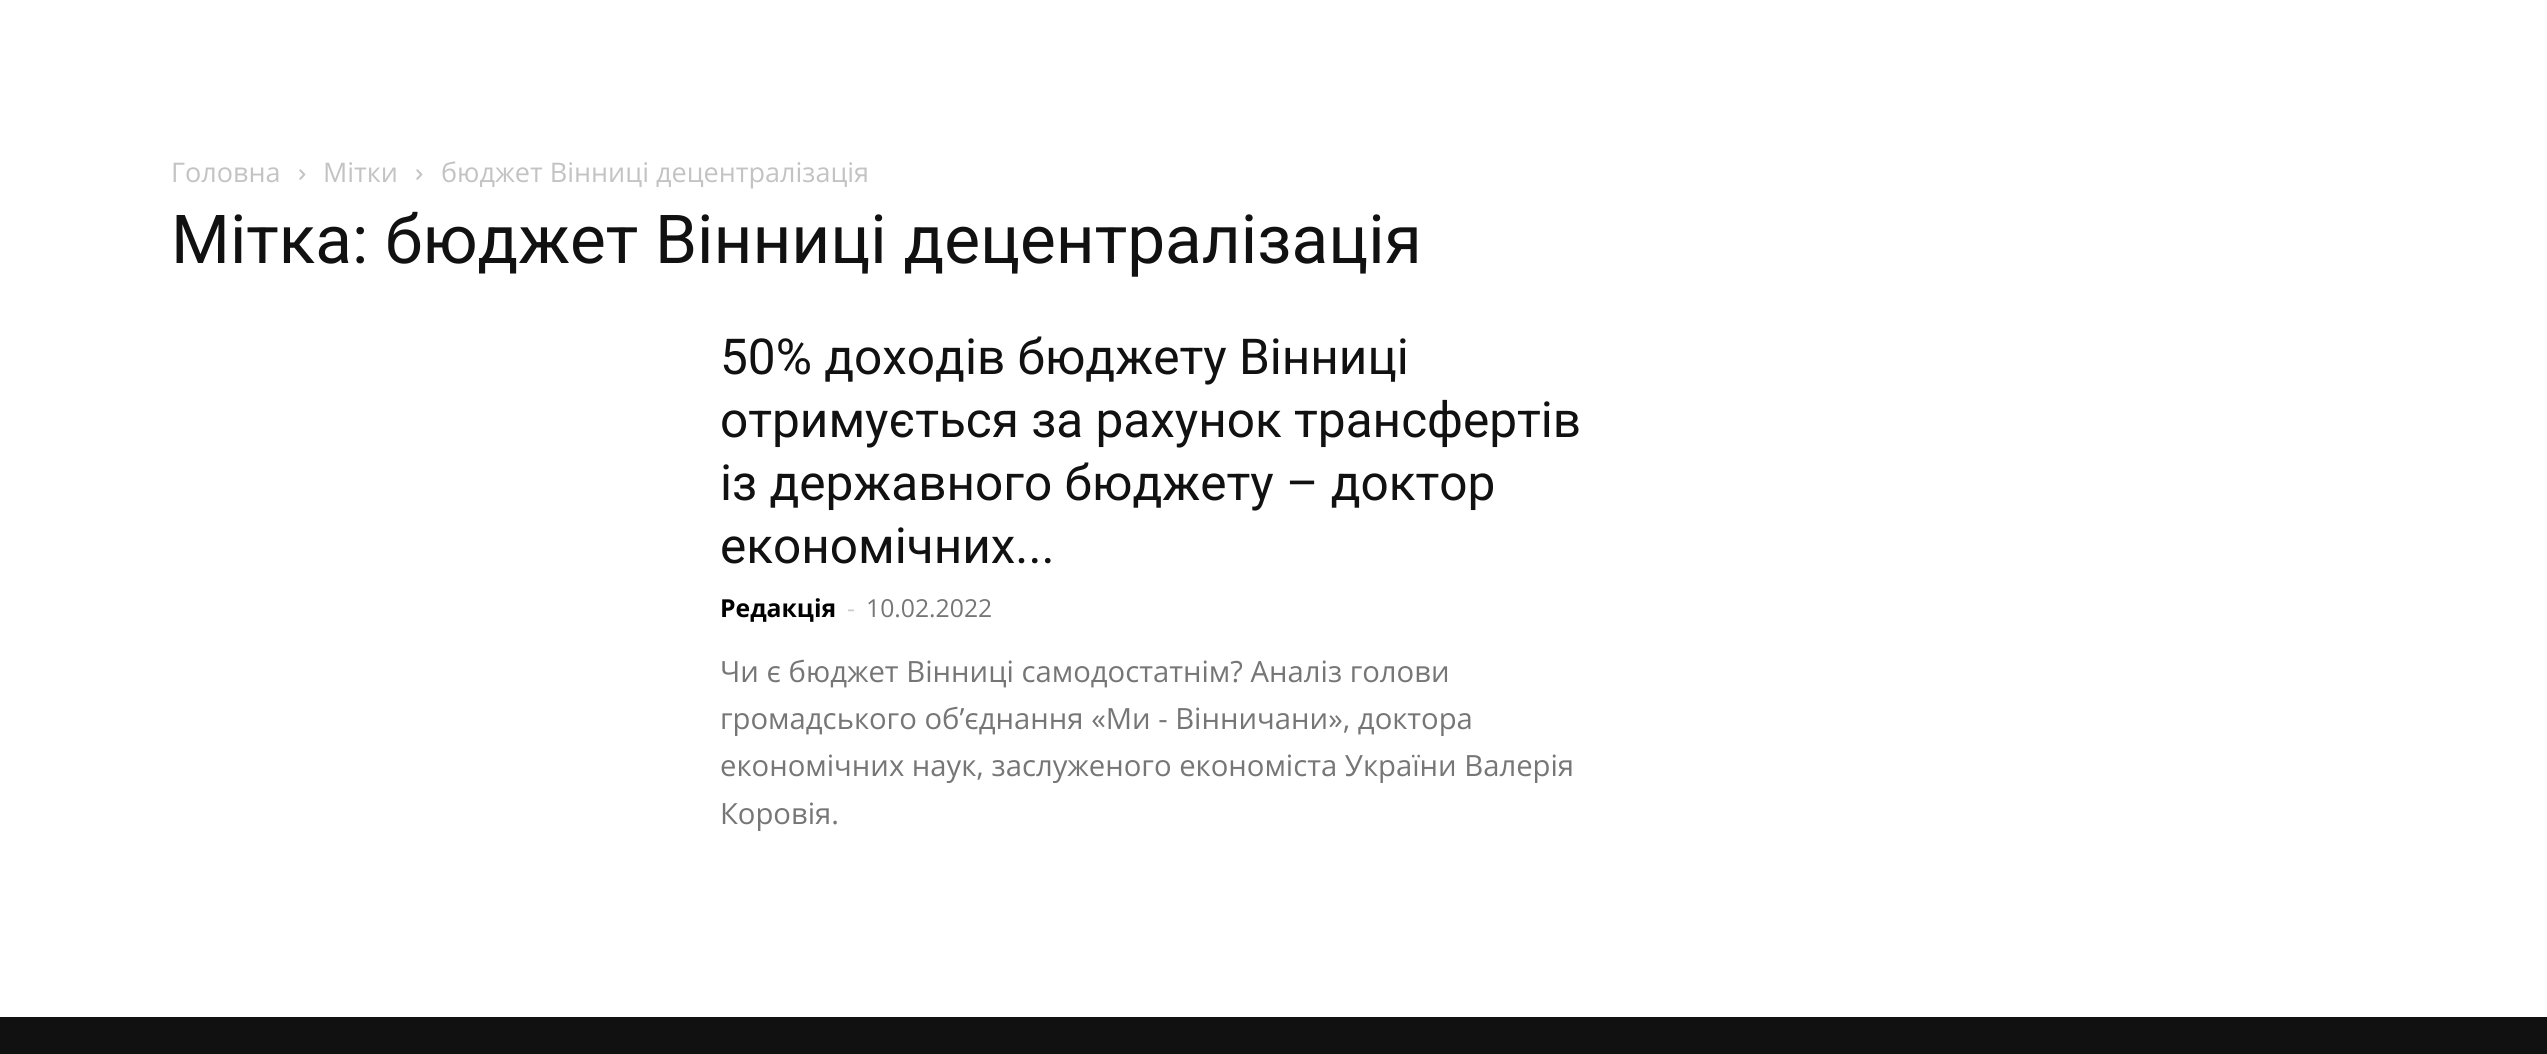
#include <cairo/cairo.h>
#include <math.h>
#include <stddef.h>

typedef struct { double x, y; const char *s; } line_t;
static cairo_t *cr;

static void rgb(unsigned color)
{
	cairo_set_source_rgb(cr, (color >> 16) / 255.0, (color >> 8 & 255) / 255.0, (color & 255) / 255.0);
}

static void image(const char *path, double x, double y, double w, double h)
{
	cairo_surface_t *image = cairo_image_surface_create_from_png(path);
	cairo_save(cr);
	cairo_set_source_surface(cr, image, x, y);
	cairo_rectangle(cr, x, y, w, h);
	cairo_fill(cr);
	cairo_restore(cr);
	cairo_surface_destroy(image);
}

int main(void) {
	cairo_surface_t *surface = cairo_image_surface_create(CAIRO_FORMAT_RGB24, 2547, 1054);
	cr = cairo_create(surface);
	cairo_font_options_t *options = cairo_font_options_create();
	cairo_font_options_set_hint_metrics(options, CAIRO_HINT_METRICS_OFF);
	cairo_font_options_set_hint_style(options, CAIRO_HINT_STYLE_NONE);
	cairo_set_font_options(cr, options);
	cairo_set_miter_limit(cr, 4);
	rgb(0xffffff);
	cairo_paint(cr);
	image("img/1.png", 299, 169, 7, 11);
	image("img/1.png", 416, 169, 7, 11);
	rgb(0x111111);
	cairo_rectangle(cr, 0, 1017, 2547, 37);
	cairo_fill(cr);
	cairo_select_font_face(cr, "Open Sans", CAIRO_FONT_SLANT_NORMAL, CAIRO_FONT_WEIGHT_NORMAL);
	cairo_set_font_size(cr, 27);
	rgb(0xc3c3c3);
	{
		static const line_t items[] = {
			{171, 182, "Головна"},
			{323, 182, "Мітки"},
			{441, 182, "бюджет Вінниці децентралізація"},
		};
		for (size_t i = 0; i < sizeof items / sizeof *items; i++) {
			cairo_move_to(cr, items[i].x, items[i].y);
			cairo_show_text(cr, items[i].s);
		}
	}
	cairo_select_font_face(cr, "Roboto", CAIRO_FONT_SLANT_NORMAL, CAIRO_FONT_WEIGHT_NORMAL);
	cairo_set_font_size(cr, 67.5);
	rgb(0x111111);
	cairo_move_to(cr, 171, 263);
	cairo_show_text(cr, "Мітка: бюджет Вінниці децентралізація");
	cairo_set_font_size(cr, 49.5);
	{
		static const line_t items[] = {
			{720, 374, "50% доходів бюджету Вінниці"},
			{720, 437, "отримується за рахунок трансфертів"},
			{720, 500, "із державного бюджету – доктор"},
			{720, 563, "економічних..."},
		};
		for (size_t i = 0; i < sizeof items / sizeof *items; i++) {
			cairo_move_to(cr, items[i].x, items[i].y);
			cairo_show_text(cr, items[i].s);
		}
	}
	cairo_select_font_face(cr, "Open Sans", CAIRO_FONT_SLANT_NORMAL, CAIRO_FONT_WEIGHT_BOLD);
	cairo_set_font_size(cr, 24.75);
	rgb(0x000000);
	cairo_move_to(cr, 720, 617);
	cairo_show_text(cr, "Редакція");
	cairo_select_font_face(cr, "Open Sans", CAIRO_FONT_SLANT_NORMAL, CAIRO_FONT_WEIGHT_NORMAL);
	rgb(0xcccccc);
	cairo_move_to(cr, 847, 617);
	cairo_show_text(cr, "-");
	rgb(0x767676);
	cairo_move_to(cr, 866, 617);
	cairo_show_text(cr, "10.02.2022");
	cairo_set_font_size(cr, 29.25);
	{
		static const line_t items[] = {
			{720, 682, "Чи є бюджет Вінниці самодостатнім? Аналіз голови"},
			{720, 729, "громадського об’єднання «Ми - Вінничани», доктора"},
			{720, 776, "економічних наук, заслуженого економіста України Валерія"},
			{720, 824, "Коровія."},
		};
		for (size_t i = 0; i < sizeof items / sizeof *items; i++) {
			cairo_move_to(cr, items[i].x, items[i].y);
			cairo_show_text(cr, items[i].s);
		}
	}
	cairo_surface_write_to_png(surface, "page.png");
	cairo_font_options_destroy(options);
	cairo_destroy(cr);
	cairo_surface_destroy(surface);
	return 0;
}
